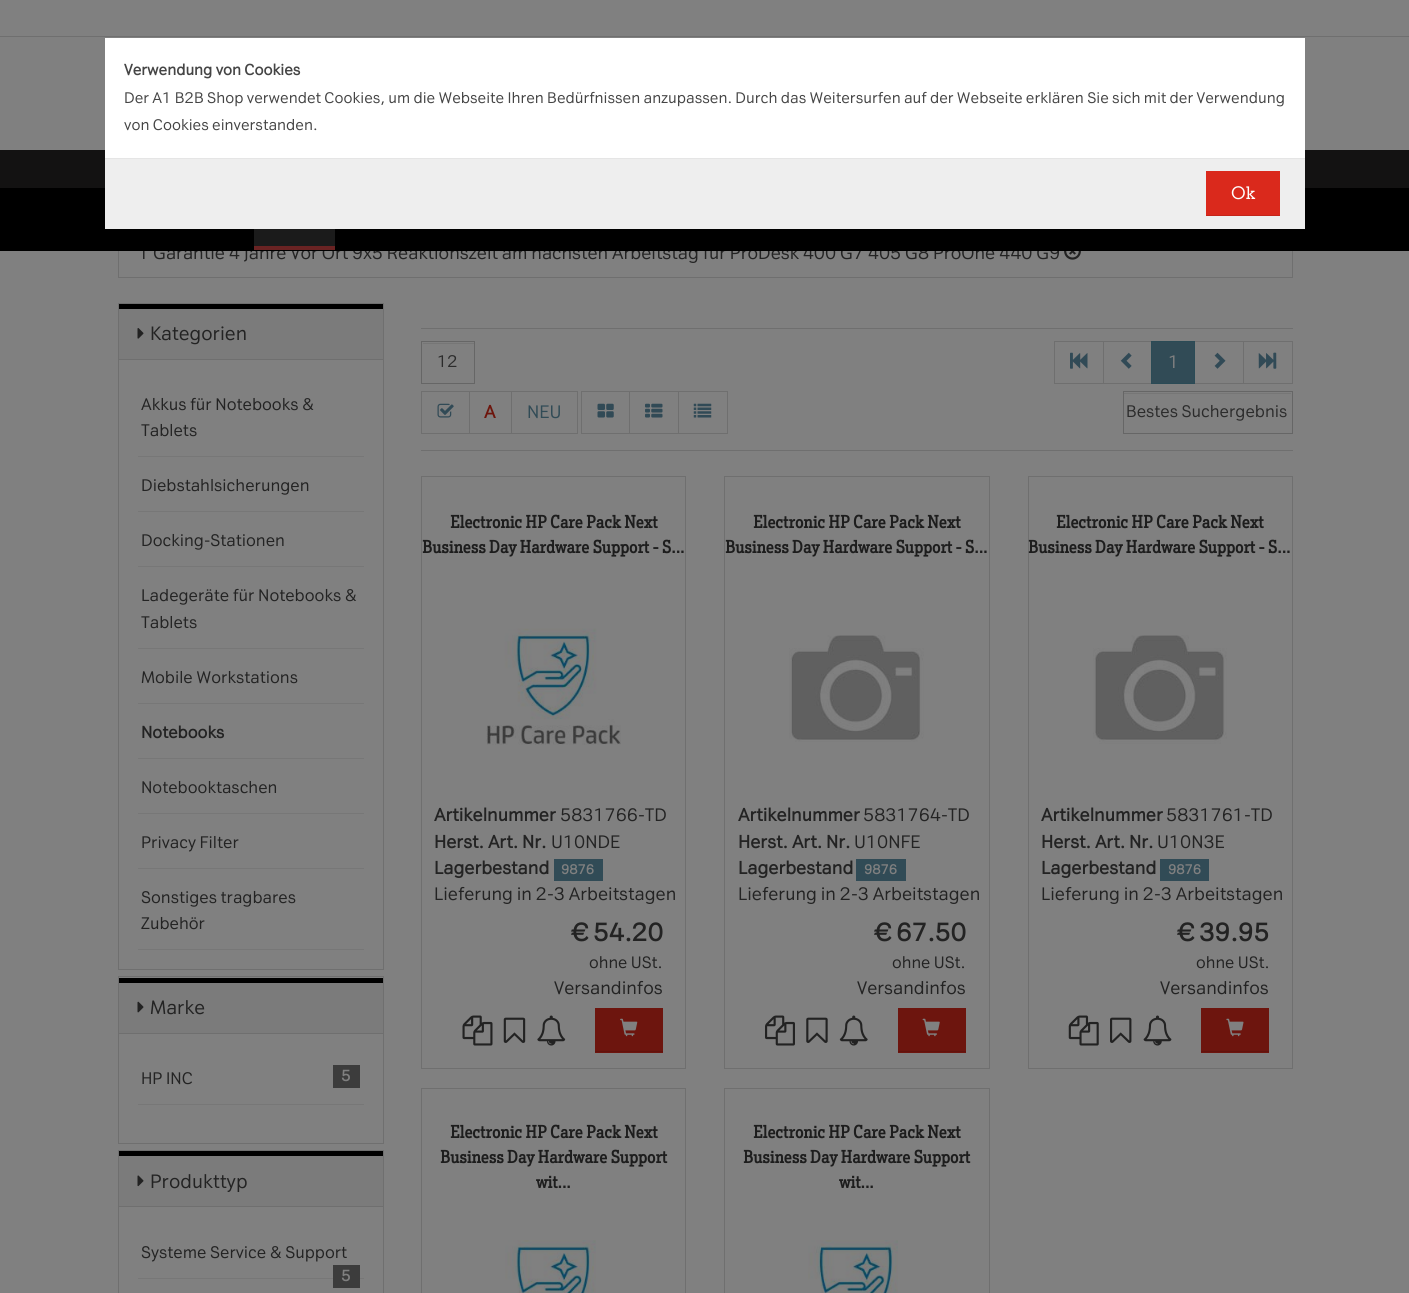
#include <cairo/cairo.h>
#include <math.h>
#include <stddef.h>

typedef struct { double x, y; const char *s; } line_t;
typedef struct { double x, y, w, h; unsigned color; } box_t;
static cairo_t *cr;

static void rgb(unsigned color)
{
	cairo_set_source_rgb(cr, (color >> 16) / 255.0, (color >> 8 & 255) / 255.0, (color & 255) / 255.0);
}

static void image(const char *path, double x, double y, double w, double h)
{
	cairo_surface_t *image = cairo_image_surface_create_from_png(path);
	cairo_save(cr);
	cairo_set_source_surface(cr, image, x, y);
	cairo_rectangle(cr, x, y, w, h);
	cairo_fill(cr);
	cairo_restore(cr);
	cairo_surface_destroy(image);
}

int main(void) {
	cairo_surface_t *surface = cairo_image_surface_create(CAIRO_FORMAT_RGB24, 1409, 1293);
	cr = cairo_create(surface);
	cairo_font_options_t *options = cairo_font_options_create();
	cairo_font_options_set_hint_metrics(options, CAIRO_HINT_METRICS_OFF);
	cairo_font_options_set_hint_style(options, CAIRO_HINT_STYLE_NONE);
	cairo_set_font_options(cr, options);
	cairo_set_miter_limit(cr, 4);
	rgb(0x808080);
	cairo_paint(cr);
	cairo_rectangle(cr, 118.5, 176.5, 1174, 101);
	rgb(0x6f6f6f);
	cairo_set_line_width(cr, 1);
	cairo_stroke(cr);
	{
		static const box_t items[] = {
			{0, 150, 1409, 38, 0x131212},
			{0, 36, 1409, 1, 0x6f6f6f},
			{105, 38, 1200, 120, 0xffffff},
			{105, 158, 1200, 1, 0xe5e5e5},
		};
		for (size_t i = 0; i < sizeof items / sizeof *items; i++) {
			rgb(items[i].color);
			cairo_rectangle(cr, items[i].x, items[i].y, items[i].w, items[i].h);
			cairo_fill(cr);
		}
	}
	image("img/1.png", 1064, 251, 17, 9);
	cairo_rectangle(cr, 118.5, 303.5, 265, 666);
	rgb(0x6f6f6f);
	cairo_stroke(cr);
	rgb(0x7b7b7b);
	cairo_rectangle(cr, 119, 309, 264, 50);
	cairo_fill(cr);
	rgb(0x000000);
	cairo_rectangle(cr, 119, 304, 264, 5);
	cairo_fill(cr);
	image("img/2.png", 137, 328, 7, 11);
	{
		static const box_t items[] = {
			{119, 359, 264, 1, 0x6f6f6f},
			{138, 456, 226, 1, 0x777777},
			{138, 511, 226, 1, 0x777777},
			{138, 566, 226, 1, 0x777777},
			{138, 648, 226, 1, 0x777777},
			{138, 703, 226, 1, 0x777777},
			{138, 758, 226, 1, 0x777777},
			{138, 813, 226, 1, 0x777777},
			{138, 868, 226, 1, 0x777777},
			{138, 949, 226, 1, 0x777777},
		};
		for (size_t i = 0; i < sizeof items / sizeof *items; i++) {
			rgb(items[i].color);
			cairo_rectangle(cr, items[i].x, items[i].y, items[i].w, items[i].h);
			cairo_fill(cr);
		}
	}
	cairo_rectangle(cr, 118.5, 976.5, 265, 167);
	rgb(0x6f6f6f);
	cairo_stroke(cr);
	rgb(0x7b7b7b);
	cairo_rectangle(cr, 119, 983, 264, 50);
	cairo_fill(cr);
	rgb(0x000000);
	cairo_rectangle(cr, 119, 978, 264, 5);
	cairo_fill(cr);
	image("img/3.png", 137, 1001, 7, 12);
	{
		static const box_t items[] = {
			{119, 1033, 264, 1, 0x6f6f6f},
			{138, 1104, 226, 1, 0x777777},
			{333, 1065, 27, 23, 0x3c3c3c},
		};
		for (size_t i = 0; i < sizeof items / sizeof *items; i++) {
			rgb(items[i].color);
			cairo_rectangle(cr, items[i].x, items[i].y, items[i].w, items[i].h);
			cairo_fill(cr);
		}
	}
	cairo_rectangle(cr, 118.5, 1150.5, 265, 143);
	rgb(0x6f6f6f);
	cairo_stroke(cr);
	rgb(0x7b7b7b);
	cairo_rectangle(cr, 119, 1156, 264, 50);
	cairo_fill(cr);
	rgb(0x000000);
	cairo_rectangle(cr, 119, 1151, 264, 5);
	cairo_fill(cr);
	image("img/4.png", 137, 1175, 7, 12);
	{
		static const box_t items[] = {
			{119, 1206, 264, 1, 0x6f6f6f},
			{138, 1278, 226, 1, 0x777777},
			{333, 1265, 27, 23, 0x3c3c3c},
			{421, 328, 872, 1, 0x6f6f6f},
			{421, 450, 872, 1, 0x6f6f6f},
			{423, 343, 51, 1, 0x767676},
		};
		for (size_t i = 0; i < sizeof items / sizeof *items; i++) {
			rgb(items[i].color);
			cairo_rectangle(cr, items[i].x, items[i].y, items[i].w, items[i].h);
			cairo_fill(cr);
		}
	}
	cairo_rectangle(cr, 421.5, 341.5, 53, 42);
	rgb(0x666666);
	cairo_stroke(cr);
	cairo_rectangle(cr, 1054.5, 341.5, 49, 42);
	rgb(0x6f6f6f);
	cairo_stroke(cr);
	image("img/5.png", 1070, 352, 18, 17);
	cairo_rectangle(cr, 1103.5, 341.5, 49, 42);
	cairo_stroke(cr);
	image("img/6.png", 1120, 352, 12, 17);
	cairo_rectangle(cr, 1194.5, 341.5, 49, 42);
	cairo_stroke(cr);
	rgb(0x314b56);
	cairo_rectangle(cr, 1151.5, 341.5, 43, 42);
	cairo_fill_preserve(cr);
	rgb(0x2b4b56);
	cairo_stroke(cr);
	image("img/7.png", 1214, 352, 12, 17);
	cairo_rectangle(cr, 1243.5, 341.5, 49, 42);
	rgb(0x6f6f6f);
	cairo_stroke(cr);
	image("img/8.png", 1258, 352, 19, 17);
	cairo_rectangle(cr, 421.5, 391.5, 48, 42);
	cairo_stroke(cr);
	image("img/9.png", 437, 403, 17, 15);
	cairo_rectangle(cr, 469.5, 391.5, 43, 42);
	cairo_stroke(cr);
	rgb(0x808080);
	cairo_rectangle(cr, 512, 392, 1, 41);
	cairo_fill(cr);
	cairo_rectangle(cr, 511.5, 391.5, 66, 42);
	rgb(0x6f6f6f);
	cairo_stroke(cr);
	cairo_rectangle(cr, 581.5, 391.5, 48, 42);
	cairo_stroke(cr);
	image("img/10.png", 597, 403, 17, 15);
	cairo_rectangle(cr, 629.5, 391.5, 49, 42);
	cairo_stroke(cr);
	image("img/11.png", 645, 403, 18, 15);
	cairo_rectangle(cr, 678.5, 391.5, 49, 42);
	cairo_stroke(cr);
	image("img/12.png", 693, 403, 19, 15);
	rgb(0x767676);
	cairo_rectangle(cr, 1124, 393, 167, 1);
	cairo_fill(cr);
	cairo_rectangle(cr, 1123.5, 391.5, 169, 42);
	rgb(0x666666);
	cairo_stroke(cr);
	cairo_rectangle(cr, 421.5, 476.5, 264, 592);
	rgb(0x6f6f6f);
	cairo_stroke(cr);
	image("img/13.png", 486, 628, 135, 117);
	rgb(0x314b56);
	cairo_rectangle(cr, 554, 859, 49, 22);
	cairo_fill(cr);
	image("img/14.png", 462, 1015, 31, 31);
	image("img/15.png", 503, 1017, 23, 26);
	image("img/16.png", 537, 1015, 29, 31);
	rgb(0x6d150e);
	cairo_rectangle(cr, 595, 1008, 68, 45);
	cairo_fill(cr);
	rgb(0x62130d);
	cairo_rectangle(cr, 595, 1051, 68, 1);
	cairo_fill(cr);
	image("img/17.png", 620, 1018, 18, 19);
	cairo_rectangle(cr, 724.5, 476.5, 265, 592);
	rgb(0x6f6f6f);
	cairo_stroke(cr);
	image("img/18.png", 789, 635, 135, 107);
	rgb(0x314b56);
	cairo_rectangle(cr, 856, 859, 50, 22);
	cairo_fill(cr);
	image("img/19.png", 765, 1015, 30, 31);
	image("img/20.png", 806, 1017, 22, 26);
	image("img/21.png", 839, 1015, 29, 31);
	rgb(0x6d150e);
	cairo_rectangle(cr, 898, 1008, 68, 45);
	cairo_fill(cr);
	rgb(0x62130d);
	cairo_rectangle(cr, 898, 1051, 68, 1);
	cairo_fill(cr);
	image("img/22.png", 922, 1018, 18, 19);
	cairo_rectangle(cr, 1028.5, 476.5, 264, 592);
	rgb(0x6f6f6f);
	cairo_stroke(cr);
	image("img/23.png", 1093, 635, 134, 109);
	rgb(0x314b56);
	cairo_rectangle(cr, 1160, 859, 49, 22);
	cairo_fill(cr);
	image("img/24.png", 1068, 1015, 31, 31);
	image("img/25.png", 1110, 1017, 22, 26);
	image("img/26.png", 1143, 1015, 29, 31);
	rgb(0x6d150e);
	cairo_rectangle(cr, 1201, 1008, 68, 45);
	cairo_fill(cr);
	rgb(0x62130d);
	cairo_rectangle(cr, 1201, 1051, 68, 1);
	cairo_fill(cr);
	image("img/27.png", 1226, 1018, 18, 19);
	cairo_rectangle(cr, 421.5, 1088.5, 264, 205);
	rgb(0x6f6f6f);
	cairo_stroke(cr);
	image("img/28.png", 505, 1240, 91, 53);
	cairo_rectangle(cr, 724.5, 1088.5, 265, 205);
	cairo_stroke(cr);
	image("img/29.png", 808, 1240, 90, 53);
	cairo_select_font_face(cr, "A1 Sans", CAIRO_FONT_SLANT_NORMAL, CAIRO_FONT_WEIGHT_BOLD);
	cairo_set_font_size(cr, 14.88);
	rgb(0x454545);
	cairo_move_to(cr, 124, 75);
	cairo_show_text(cr, "Verwendung von Cookies");
	cairo_select_font_face(cr, "A1 Sans", CAIRO_FONT_SLANT_NORMAL, CAIRO_FONT_WEIGHT_NORMAL);
	cairo_move_to(cr, 124, 103);
	cairo_show_text(cr, "Der A1 B2B Shop verwendet Cookies, um die Webseite Ihren Bedürfnissen anzupassen. Durch das Weitersurfen auf der Webseite erklären Sie sich mit der Verwendung");
	cairo_move_to(cr, 124, 130);
	cairo_show_text(cr, "von Cookies einverstanden.");
	cairo_set_font_size(cr, 17.5);
	rgb(0x232323);
	cairo_move_to(cr, 138, 259);
	cairo_show_text(cr, "1 Garantie 4 Jahre Vor Ort 9x5 Reaktionszeit am nachsten Arbeitstag fur ProDesk 400 G7 405 G8 ProOne 440 G9");
	{
		static const box_t items[] = {
			{0, 188, 1409, 63, 0x000000},
			{105, 159, 1200, 70, 0xeeeeee},
			{1206, 171, 74, 44, 0xda291c},
		};
		for (size_t i = 0; i < sizeof items / sizeof *items; i++) {
			rgb(items[i].color);
			cairo_rectangle(cr, items[i].x, items[i].y, items[i].w, items[i].h);
			cairo_fill(cr);
		}
	}
	cairo_select_font_face(cr, "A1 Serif", CAIRO_FONT_SLANT_NORMAL, CAIRO_FONT_WEIGHT_NORMAL);
	rgb(0xffffff);
	cairo_move_to(cr, 1231, 199);
	cairo_show_text(cr, "Ok");
	{
		static const box_t items[] = {
			{1206, 215, 74, 1, 0xc42519},
			{254, 246, 81, 4, 0x6a2323},
			{254, 229, 81, 17, 0x1b1b1b},
		};
		for (size_t i = 0; i < sizeof items / sizeof *items; i++) {
			rgb(items[i].color);
			cairo_rectangle(cr, items[i].x, items[i].y, items[i].w, items[i].h);
			cairo_fill(cr);
		}
	}
	cairo_select_font_face(cr, "A1 Sans", CAIRO_FONT_SLANT_NORMAL, CAIRO_FONT_WEIGHT_NORMAL);
	cairo_set_font_size(cr, 18.75);
	rgb(0x232323);
	cairo_move_to(cr, 150, 340);
	cairo_show_text(cr, "Kategorien");
	cairo_set_font_size(cr, 16.25);
	{
		static const line_t items[] = {
			{141, 410, "Akkus für Notebooks &"},
			{141, 436, "Tablets"},
			{141, 491, "Diebstahlsicherungen"},
			{141, 546, "Docking-Stationen"},
			{141, 601, "Ladegeräte für Notebooks &"},
			{141, 628, "Tablets"},
			{141, 683, "Mobile Workstations"},
		};
		for (size_t i = 0; i < sizeof items / sizeof *items; i++) {
			cairo_move_to(cr, items[i].x, items[i].y);
			cairo_show_text(cr, items[i].s);
		}
	}
	cairo_select_font_face(cr, "A1 Sans", CAIRO_FONT_SLANT_NORMAL, CAIRO_FONT_WEIGHT_BOLD);
	cairo_move_to(cr, 141, 738);
	cairo_show_text(cr, "Notebooks");
	cairo_select_font_face(cr, "A1 Sans", CAIRO_FONT_SLANT_NORMAL, CAIRO_FONT_WEIGHT_NORMAL);
	{
		static const line_t items[] = {
			{141, 793, "Notebooktaschen"},
			{141, 848, "Privacy Filter"},
			{141, 903, "Sonstiges tragbares"},
			{141, 929, "Zubehör"},
		};
		for (size_t i = 0; i < sizeof items / sizeof *items; i++) {
			cairo_move_to(cr, items[i].x, items[i].y);
			cairo_show_text(cr, items[i].s);
		}
	}
	cairo_set_font_size(cr, 18.75);
	cairo_move_to(cr, 150, 1014);
	cairo_show_text(cr, "Marke");
	cairo_set_font_size(cr, 16.25);
	cairo_move_to(cr, 141, 1084);
	cairo_show_text(cr, "HP INC");
	cairo_select_font_face(cr, "A1 Sans", CAIRO_FONT_SLANT_NORMAL, CAIRO_FONT_WEIGHT_BOLD);
	cairo_set_font_size(cr, 15);
	rgb(0x808080);
	cairo_move_to(cr, 341, 1081);
	cairo_show_text(cr, "5");
	cairo_select_font_face(cr, "A1 Sans", CAIRO_FONT_SLANT_NORMAL, CAIRO_FONT_WEIGHT_NORMAL);
	cairo_set_font_size(cr, 18.75);
	rgb(0x232323);
	cairo_move_to(cr, 150, 1188);
	cairo_show_text(cr, "Produkttyp");
	cairo_set_font_size(cr, 16.25);
	cairo_move_to(cr, 141, 1258);
	cairo_show_text(cr, "Systeme Service & Support");
	cairo_select_font_face(cr, "A1 Sans", CAIRO_FONT_SLANT_NORMAL, CAIRO_FONT_WEIGHT_BOLD);
	cairo_set_font_size(cr, 15);
	rgb(0x808080);
	cairo_move_to(cr, 341, 1281);
	cairo_show_text(cr, "5");
	cairo_select_font_face(cr, "A1 Sans", CAIRO_FONT_SLANT_NORMAL, CAIRO_FONT_WEIGHT_NORMAL);
	cairo_set_font_size(cr, 16.25);
	rgb(0x2b2b2b);
	cairo_move_to(cr, 437, 367);
	cairo_show_text(cr, "12");
	cairo_set_font_size(cr, 17.5);
	rgb(0x808080);
	cairo_move_to(cr, 1168, 368);
	cairo_show_text(cr, "1");
	cairo_select_font_face(cr, "A1 Sans", CAIRO_FONT_SLANT_NORMAL, CAIRO_FONT_WEIGHT_BOLD);
	rgb(0x6d150c);
	cairo_move_to(cr, 484, 418);
	cairo_show_text(cr, "A");
	cairo_select_font_face(cr, "A1 Sans", CAIRO_FONT_SLANT_NORMAL, CAIRO_FONT_WEIGHT_NORMAL);
	rgb(0x314b56);
	cairo_move_to(cr, 527, 418);
	cairo_show_text(cr, "NEU");
	cairo_set_font_size(cr, 16.25);
	rgb(0x2b2b2b);
	cairo_move_to(cr, 1126, 417);
	cairo_show_text(cr, "Bestes Suchergebnis");
	cairo_select_font_face(cr, "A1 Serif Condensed", CAIRO_FONT_SLANT_NORMAL, CAIRO_FONT_WEIGHT_BOLD);
	cairo_set_font_size(cr, 17.5);
	rgb(0x1d1d1d);
	cairo_move_to(cr, 450, 528);
	cairo_show_text(cr, "Electronic HP Care Pack Next");
	cairo_move_to(cr, 422, 553);
	cairo_show_text(cr, "Business Day Hardware Support - S...");
	cairo_select_font_face(cr, "A1 Sans", CAIRO_FONT_SLANT_NORMAL, CAIRO_FONT_WEIGHT_BOLD);
	rgb(0x232323);
	cairo_move_to(cr, 434, 821);
	cairo_show_text(cr, "Artikelnummer");
	cairo_select_font_face(cr, "A1 Sans", CAIRO_FONT_SLANT_NORMAL, CAIRO_FONT_WEIGHT_NORMAL);
	cairo_move_to(cr, 560, 821);
	cairo_show_text(cr, "5831766-TD");
	cairo_select_font_face(cr, "A1 Sans", CAIRO_FONT_SLANT_NORMAL, CAIRO_FONT_WEIGHT_BOLD);
	cairo_move_to(cr, 434, 848);
	cairo_show_text(cr, "Herst. Art. Nr.");
	cairo_select_font_face(cr, "A1 Sans", CAIRO_FONT_SLANT_NORMAL, CAIRO_FONT_WEIGHT_NORMAL);
	cairo_move_to(cr, 551, 848);
	cairo_show_text(cr, "U10NDE");
	cairo_select_font_face(cr, "A1 Sans", CAIRO_FONT_SLANT_NORMAL, CAIRO_FONT_WEIGHT_BOLD);
	cairo_move_to(cr, 434, 874);
	cairo_show_text(cr, "Lagerbestand");
	cairo_set_font_size(cr, 13);
	rgb(0x808080);
	cairo_move_to(cr, 561, 874);
	cairo_show_text(cr, "9876");
	cairo_select_font_face(cr, "A1 Sans", CAIRO_FONT_SLANT_NORMAL, CAIRO_FONT_WEIGHT_NORMAL);
	cairo_set_font_size(cr, 17.5);
	rgb(0x232323);
	cairo_move_to(cr, 434, 900);
	cairo_show_text(cr, "Lieferung in 2-3 Arbeitstagen");
	cairo_select_font_face(cr, "A1 Sans", CAIRO_FONT_SLANT_NORMAL, CAIRO_FONT_WEIGHT_BOLD);
	cairo_set_font_size(cr, 24.5);
	cairo_move_to(cr, 572, 941);
	cairo_show_text(cr, "€ 54.20");
	cairo_select_font_face(cr, "A1 Sans", CAIRO_FONT_SLANT_NORMAL, CAIRO_FONT_WEIGHT_NORMAL);
	cairo_set_font_size(cr, 16);
	cairo_move_to(cr, 589, 968);
	cairo_show_text(cr, "ohne USt.");
	cairo_set_font_size(cr, 17.5);
	cairo_move_to(cr, 554, 994);
	cairo_show_text(cr, "Versandinfos");
	cairo_select_font_face(cr, "A1 Serif Condensed", CAIRO_FONT_SLANT_NORMAL, CAIRO_FONT_WEIGHT_BOLD);
	rgb(0x1d1d1d);
	cairo_move_to(cr, 753, 528);
	cairo_show_text(cr, "Electronic HP Care Pack Next");
	cairo_move_to(cr, 725, 553);
	cairo_show_text(cr, "Business Day Hardware Support - S...");
	cairo_select_font_face(cr, "A1 Sans", CAIRO_FONT_SLANT_NORMAL, CAIRO_FONT_WEIGHT_BOLD);
	rgb(0x232323);
	cairo_move_to(cr, 738, 821);
	cairo_show_text(cr, "Artikelnummer");
	cairo_select_font_face(cr, "A1 Sans", CAIRO_FONT_SLANT_NORMAL, CAIRO_FONT_WEIGHT_NORMAL);
	cairo_move_to(cr, 863, 821);
	cairo_show_text(cr, "5831764-TD");
	cairo_select_font_face(cr, "A1 Sans", CAIRO_FONT_SLANT_NORMAL, CAIRO_FONT_WEIGHT_BOLD);
	cairo_move_to(cr, 738, 848);
	cairo_show_text(cr, "Herst. Art. Nr.");
	cairo_select_font_face(cr, "A1 Sans", CAIRO_FONT_SLANT_NORMAL, CAIRO_FONT_WEIGHT_NORMAL);
	cairo_move_to(cr, 854, 848);
	cairo_show_text(cr, "U10NFE");
	cairo_select_font_face(cr, "A1 Sans", CAIRO_FONT_SLANT_NORMAL, CAIRO_FONT_WEIGHT_BOLD);
	cairo_move_to(cr, 738, 874);
	cairo_show_text(cr, "Lagerbestand");
	cairo_set_font_size(cr, 13);
	rgb(0x808080);
	cairo_move_to(cr, 864, 874);
	cairo_show_text(cr, "9876");
	cairo_select_font_face(cr, "A1 Sans", CAIRO_FONT_SLANT_NORMAL, CAIRO_FONT_WEIGHT_NORMAL);
	cairo_set_font_size(cr, 17.5);
	rgb(0x232323);
	cairo_move_to(cr, 738, 900);
	cairo_show_text(cr, "Lieferung in 2-3 Arbeitstagen");
	cairo_select_font_face(cr, "A1 Sans", CAIRO_FONT_SLANT_NORMAL, CAIRO_FONT_WEIGHT_BOLD);
	cairo_set_font_size(cr, 24.5);
	cairo_move_to(cr, 875, 941);
	cairo_show_text(cr, "€ 67.50");
	cairo_select_font_face(cr, "A1 Sans", CAIRO_FONT_SLANT_NORMAL, CAIRO_FONT_WEIGHT_NORMAL);
	cairo_set_font_size(cr, 16);
	cairo_move_to(cr, 892, 968);
	cairo_show_text(cr, "ohne USt.");
	cairo_set_font_size(cr, 17.5);
	cairo_move_to(cr, 857, 994);
	cairo_show_text(cr, "Versandinfos");
	cairo_select_font_face(cr, "A1 Serif Condensed", CAIRO_FONT_SLANT_NORMAL, CAIRO_FONT_WEIGHT_BOLD);
	rgb(0x1d1d1d);
	cairo_move_to(cr, 1056, 528);
	cairo_show_text(cr, "Electronic HP Care Pack Next");
	cairo_move_to(cr, 1028, 553);
	cairo_show_text(cr, "Business Day Hardware Support - S...");
	cairo_select_font_face(cr, "A1 Sans", CAIRO_FONT_SLANT_NORMAL, CAIRO_FONT_WEIGHT_BOLD);
	rgb(0x232323);
	cairo_move_to(cr, 1041, 821);
	cairo_show_text(cr, "Artikelnummer");
	cairo_select_font_face(cr, "A1 Sans", CAIRO_FONT_SLANT_NORMAL, CAIRO_FONT_WEIGHT_NORMAL);
	cairo_move_to(cr, 1166, 821);
	cairo_show_text(cr, "5831761-TD");
	cairo_select_font_face(cr, "A1 Sans", CAIRO_FONT_SLANT_NORMAL, CAIRO_FONT_WEIGHT_BOLD);
	cairo_move_to(cr, 1041, 848);
	cairo_show_text(cr, "Herst. Art. Nr.");
	cairo_select_font_face(cr, "A1 Sans", CAIRO_FONT_SLANT_NORMAL, CAIRO_FONT_WEIGHT_NORMAL);
	cairo_move_to(cr, 1157, 848);
	cairo_show_text(cr, "U10N3E");
	cairo_select_font_face(cr, "A1 Sans", CAIRO_FONT_SLANT_NORMAL, CAIRO_FONT_WEIGHT_BOLD);
	cairo_move_to(cr, 1041, 874);
	cairo_show_text(cr, "Lagerbestand");
	cairo_set_font_size(cr, 13);
	rgb(0x808080);
	cairo_move_to(cr, 1168, 874);
	cairo_show_text(cr, "9876");
	cairo_select_font_face(cr, "A1 Sans", CAIRO_FONT_SLANT_NORMAL, CAIRO_FONT_WEIGHT_NORMAL);
	cairo_set_font_size(cr, 17.5);
	rgb(0x232323);
	cairo_move_to(cr, 1041, 900);
	cairo_show_text(cr, "Lieferung in 2-3 Arbeitstagen");
	cairo_select_font_face(cr, "A1 Sans", CAIRO_FONT_SLANT_NORMAL, CAIRO_FONT_WEIGHT_BOLD);
	cairo_set_font_size(cr, 24.5);
	cairo_move_to(cr, 1178, 941);
	cairo_show_text(cr, "€ 39.95");
	cairo_select_font_face(cr, "A1 Sans", CAIRO_FONT_SLANT_NORMAL, CAIRO_FONT_WEIGHT_NORMAL);
	cairo_set_font_size(cr, 16);
	cairo_move_to(cr, 1196, 968);
	cairo_show_text(cr, "ohne USt.");
	cairo_set_font_size(cr, 17.5);
	cairo_move_to(cr, 1160, 994);
	cairo_show_text(cr, "Versandinfos");
	cairo_select_font_face(cr, "A1 Serif Condensed", CAIRO_FONT_SLANT_NORMAL, CAIRO_FONT_WEIGHT_BOLD);
	rgb(0x1d1d1d);
	{
		static const line_t items[] = {
			{450, 1138, "Electronic HP Care Pack Next"},
			{440, 1163, "Business Day Hardware Support"},
			{536, 1188, "wit..."},
			{753, 1138, "Electronic HP Care Pack Next"},
			{743, 1163, "Business Day Hardware Support"},
			{839, 1188, "wit..."},
		};
		for (size_t i = 0; i < sizeof items / sizeof *items; i++) {
			cairo_move_to(cr, items[i].x, items[i].y);
			cairo_show_text(cr, items[i].s);
		}
	}
	cairo_surface_write_to_png(surface, "page.png");
	cairo_font_options_destroy(options);
	cairo_destroy(cr);
	cairo_surface_destroy(surface);
	return 0;
}
